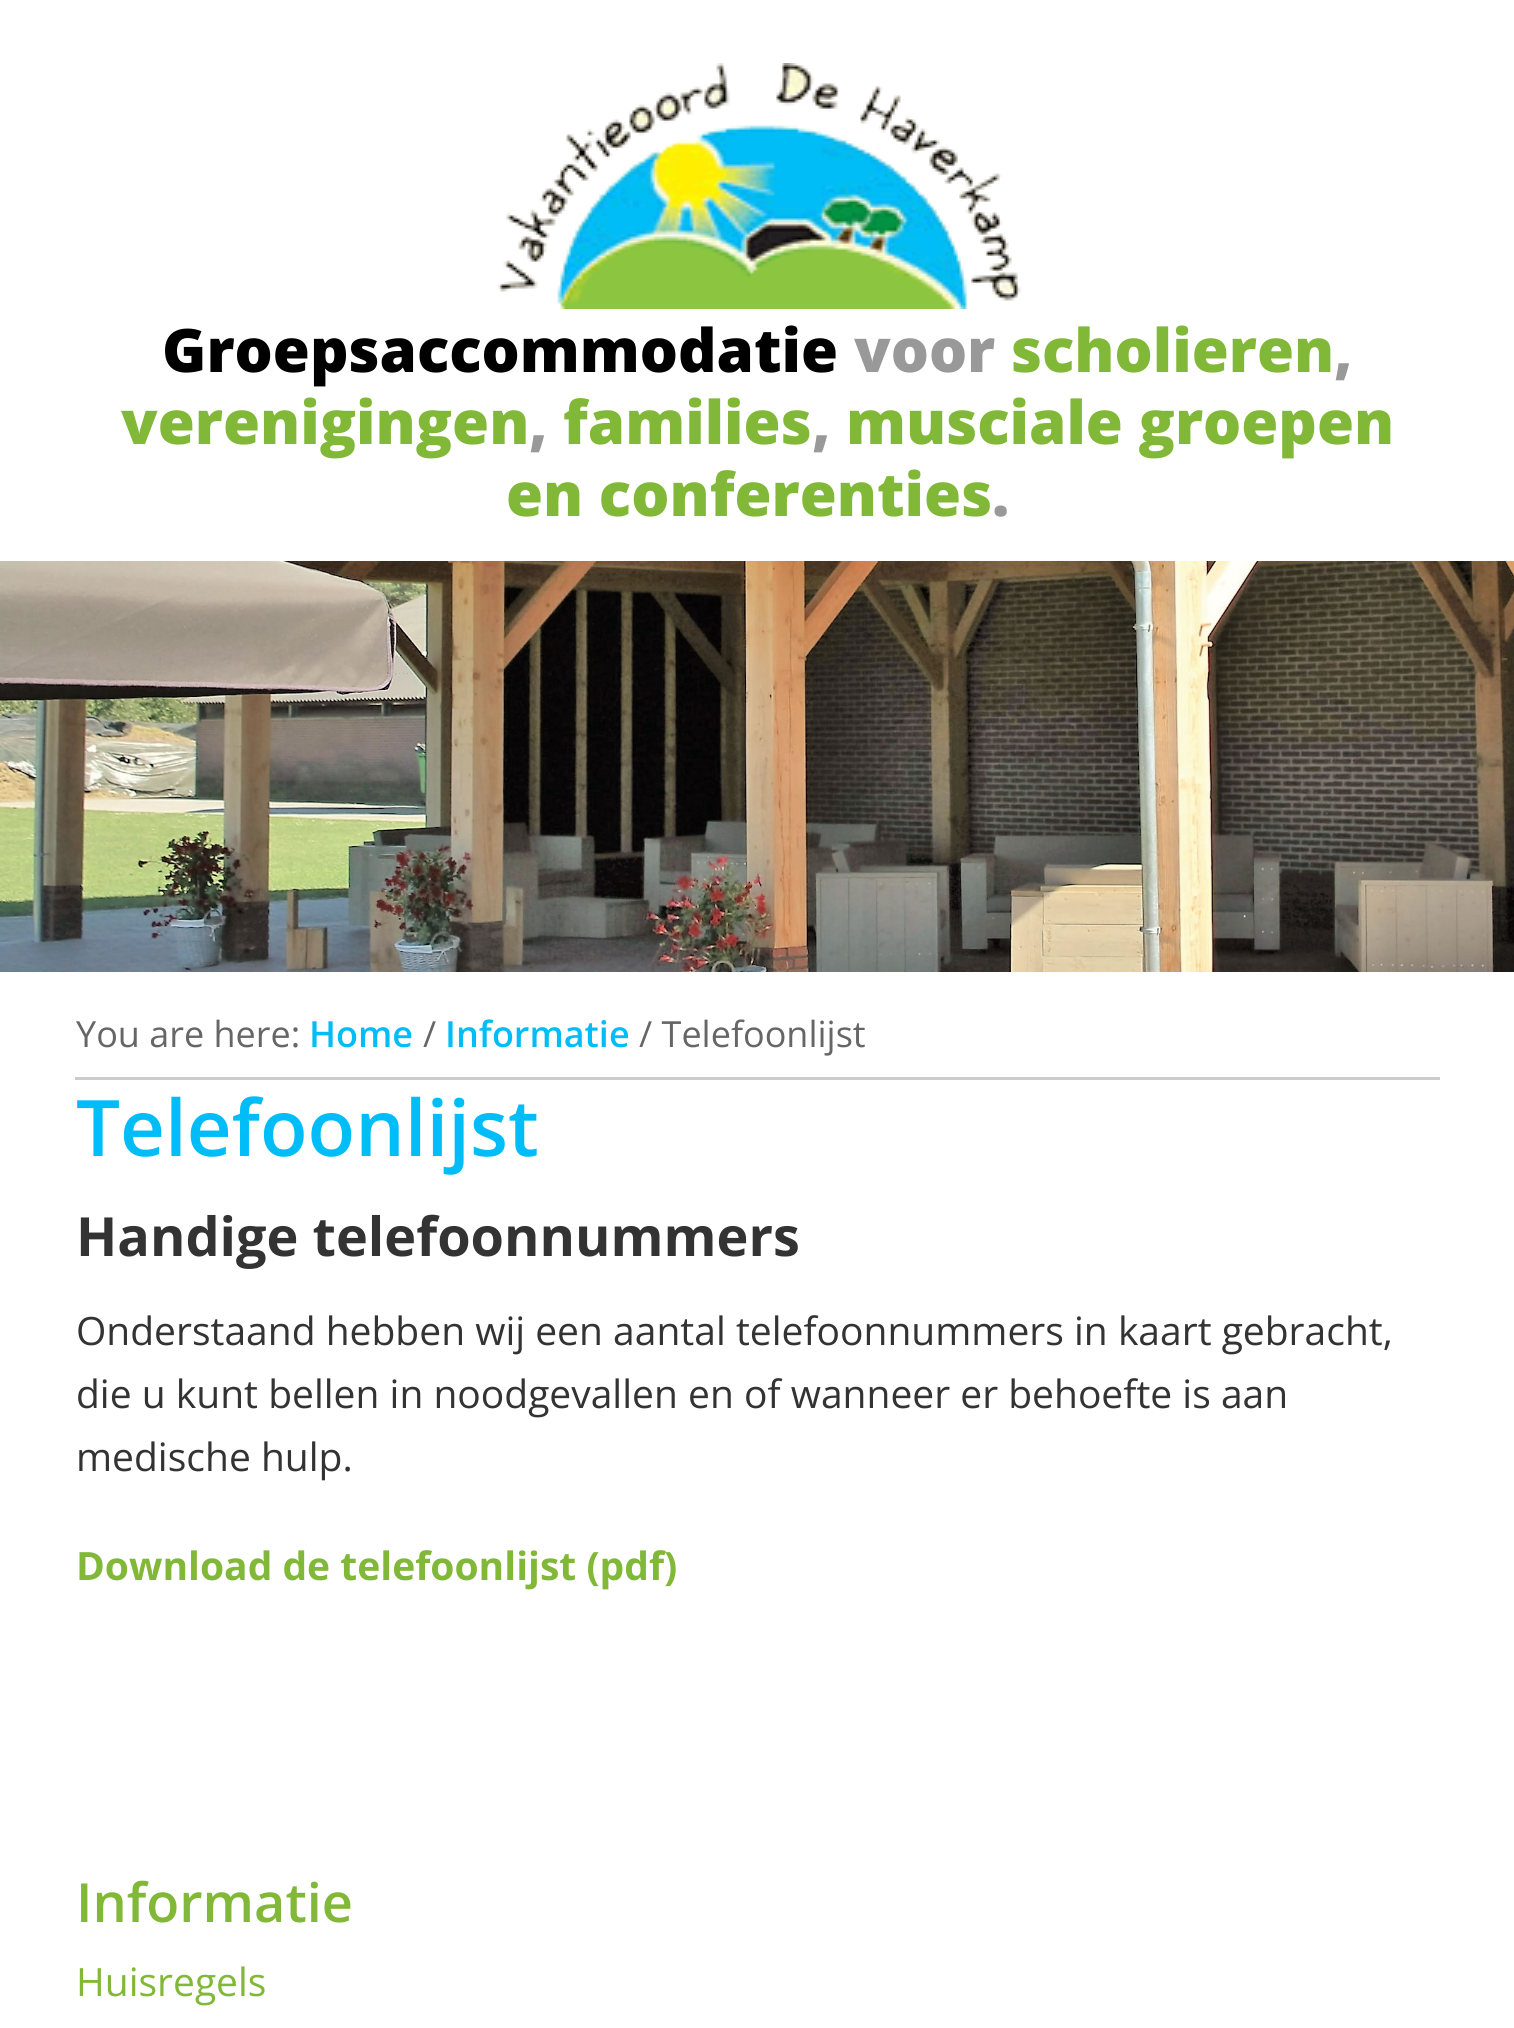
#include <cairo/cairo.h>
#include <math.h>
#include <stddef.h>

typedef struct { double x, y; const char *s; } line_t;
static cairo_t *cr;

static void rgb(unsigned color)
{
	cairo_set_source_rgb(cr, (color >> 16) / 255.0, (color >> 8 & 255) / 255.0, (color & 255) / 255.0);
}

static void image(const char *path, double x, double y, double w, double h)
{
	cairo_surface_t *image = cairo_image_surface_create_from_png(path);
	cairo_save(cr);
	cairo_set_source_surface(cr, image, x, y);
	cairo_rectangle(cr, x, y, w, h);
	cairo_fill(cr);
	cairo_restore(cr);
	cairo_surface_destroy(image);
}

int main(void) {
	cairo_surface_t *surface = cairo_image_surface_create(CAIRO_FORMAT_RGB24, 1514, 2028);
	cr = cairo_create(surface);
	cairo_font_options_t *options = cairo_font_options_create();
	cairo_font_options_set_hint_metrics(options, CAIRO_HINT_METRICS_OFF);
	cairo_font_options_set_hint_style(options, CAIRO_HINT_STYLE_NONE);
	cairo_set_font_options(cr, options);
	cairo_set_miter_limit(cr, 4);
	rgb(0xffffff);
	cairo_paint(cr);
	image("img/1.png", 497, 63, 524, 246);
	image("img/2.png", 0, 561, 1514, 411);
	rgb(0xcccccc);
	cairo_rectangle(cr, 75, 1077, 1365, 3);
	cairo_fill(cr);
	cairo_select_font_face(cr, "Open Sans ExtraBold", CAIRO_FONT_SLANT_NORMAL, CAIRO_FONT_WEIGHT_NORMAL);
	cairo_set_font_size(cr, 60);
	rgb(0x000000);
	cairo_move_to(cr, 162, 372);
	cairo_show_text(cr, "Groepsaccommodatie");
	rgb(0x999999);
	cairo_move_to(cr, 854, 372);
	cairo_show_text(cr, "voor");
	rgb(0x82b838);
	cairo_move_to(cr, 1011, 372);
	cairo_show_text(cr, "scholieren");
	rgb(0x999999);
	cairo_move_to(cr, 1334, 372);
	cairo_show_text(cr, ",");
	rgb(0x82b838);
	cairo_move_to(cr, 121, 444);
	cairo_show_text(cr, "verenigingen");
	rgb(0x999999);
	cairo_move_to(cr, 529, 444);
	cairo_show_text(cr, ",");
	rgb(0x82b838);
	cairo_move_to(cr, 563, 444);
	cairo_show_text(cr, "families");
	rgb(0x999999);
	cairo_move_to(cr, 812, 444);
	cairo_show_text(cr, ",");
	rgb(0x82b838);
	cairo_move_to(cr, 846, 444);
	cairo_show_text(cr, "musciale groepen");
	cairo_move_to(cr, 506, 516);
	cairo_show_text(cr, "en conferenties");
	rgb(0x999999);
	cairo_move_to(cr, 992, 516);
	cairo_show_text(cr, ".");
	cairo_select_font_face(cr, "Open Sans", CAIRO_FONT_SLANT_NORMAL, CAIRO_FONT_WEIGHT_NORMAL);
	cairo_set_font_size(cr, 36);
	rgb(0x666666);
	cairo_move_to(cr, 76, 1047);
	cairo_show_text(cr, "You are here:");
	cairo_select_font_face(cr, "Open Sans SemiBold", CAIRO_FONT_SLANT_NORMAL, CAIRO_FONT_WEIGHT_NORMAL);
	rgb(0x00bdf7);
	cairo_move_to(cr, 309, 1047);
	cairo_show_text(cr, "Home");
	cairo_select_font_face(cr, "Open Sans", CAIRO_FONT_SLANT_NORMAL, CAIRO_FONT_WEIGHT_NORMAL);
	rgb(0x666666);
	cairo_move_to(cr, 423, 1047);
	cairo_show_text(cr, "/");
	cairo_select_font_face(cr, "Open Sans SemiBold", CAIRO_FONT_SLANT_NORMAL, CAIRO_FONT_WEIGHT_NORMAL);
	rgb(0x00bdf7);
	cairo_move_to(cr, 445, 1047);
	cairo_show_text(cr, "Informatie");
	cairo_select_font_face(cr, "Open Sans", CAIRO_FONT_SLANT_NORMAL, CAIRO_FONT_WEIGHT_NORMAL);
	rgb(0x666666);
	cairo_move_to(cr, 639, 1047);
	cairo_show_text(cr, "/ Telefoonlijst");
	cairo_select_font_face(cr, "Open Sans SemiBold", CAIRO_FONT_SLANT_NORMAL, CAIRO_FONT_WEIGHT_NORMAL);
	cairo_set_font_size(cr, 78);
	rgb(0x00bdf7);
	cairo_move_to(cr, 76, 1156);
	cairo_show_text(cr, "Telefoonlijst");
	cairo_select_font_face(cr, "Open Sans", CAIRO_FONT_SLANT_NORMAL, CAIRO_FONT_WEIGHT_BOLD);
	cairo_set_font_size(cr, 54);
	rgb(0x333333);
	cairo_move_to(cr, 76, 1256);
	cairo_show_text(cr, "Handige telefoonnummers");
	cairo_select_font_face(cr, "Open Sans", CAIRO_FONT_SLANT_NORMAL, CAIRO_FONT_WEIGHT_NORMAL);
	cairo_set_font_size(cr, 39);
	{
		static const line_t items[] = {
			{76, 1345, "Onderstaand hebben wij een aantal telefoonnummers in kaart gebracht,"},
			{76, 1408, "die u kunt bellen in noodgevallen en of wanneer er behoefte is aan"},
			{76, 1471, "medische hulp."},
		};
		for (size_t i = 0; i < sizeof items / sizeof *items; i++) {
			cairo_move_to(cr, items[i].x, items[i].y);
			cairo_show_text(cr, items[i].s);
		}
	}
	cairo_select_font_face(cr, "Open Sans", CAIRO_FONT_SLANT_NORMAL, CAIRO_FONT_WEIGHT_BOLD);
	rgb(0x82b838);
	cairo_move_to(cr, 76, 1580);
	cairo_show_text(cr, "Download de telefoonlijst (pdf)");
	cairo_select_font_face(cr, "Open Sans SemiBold", CAIRO_FONT_SLANT_NORMAL, CAIRO_FONT_WEIGHT_NORMAL);
	cairo_set_font_size(cr, 54);
	cairo_move_to(cr, 76, 1922);
	cairo_show_text(cr, "Informatie");
	cairo_select_font_face(cr, "Open Sans", CAIRO_FONT_SLANT_NORMAL, CAIRO_FONT_WEIGHT_NORMAL);
	cairo_set_font_size(cr, 39);
	cairo_move_to(cr, 76, 1996);
	cairo_show_text(cr, "Huisregels");
	cairo_surface_write_to_png(surface, "page.png");
	cairo_font_options_destroy(options);
	cairo_destroy(cr);
	cairo_surface_destroy(surface);
	return 0;
}
